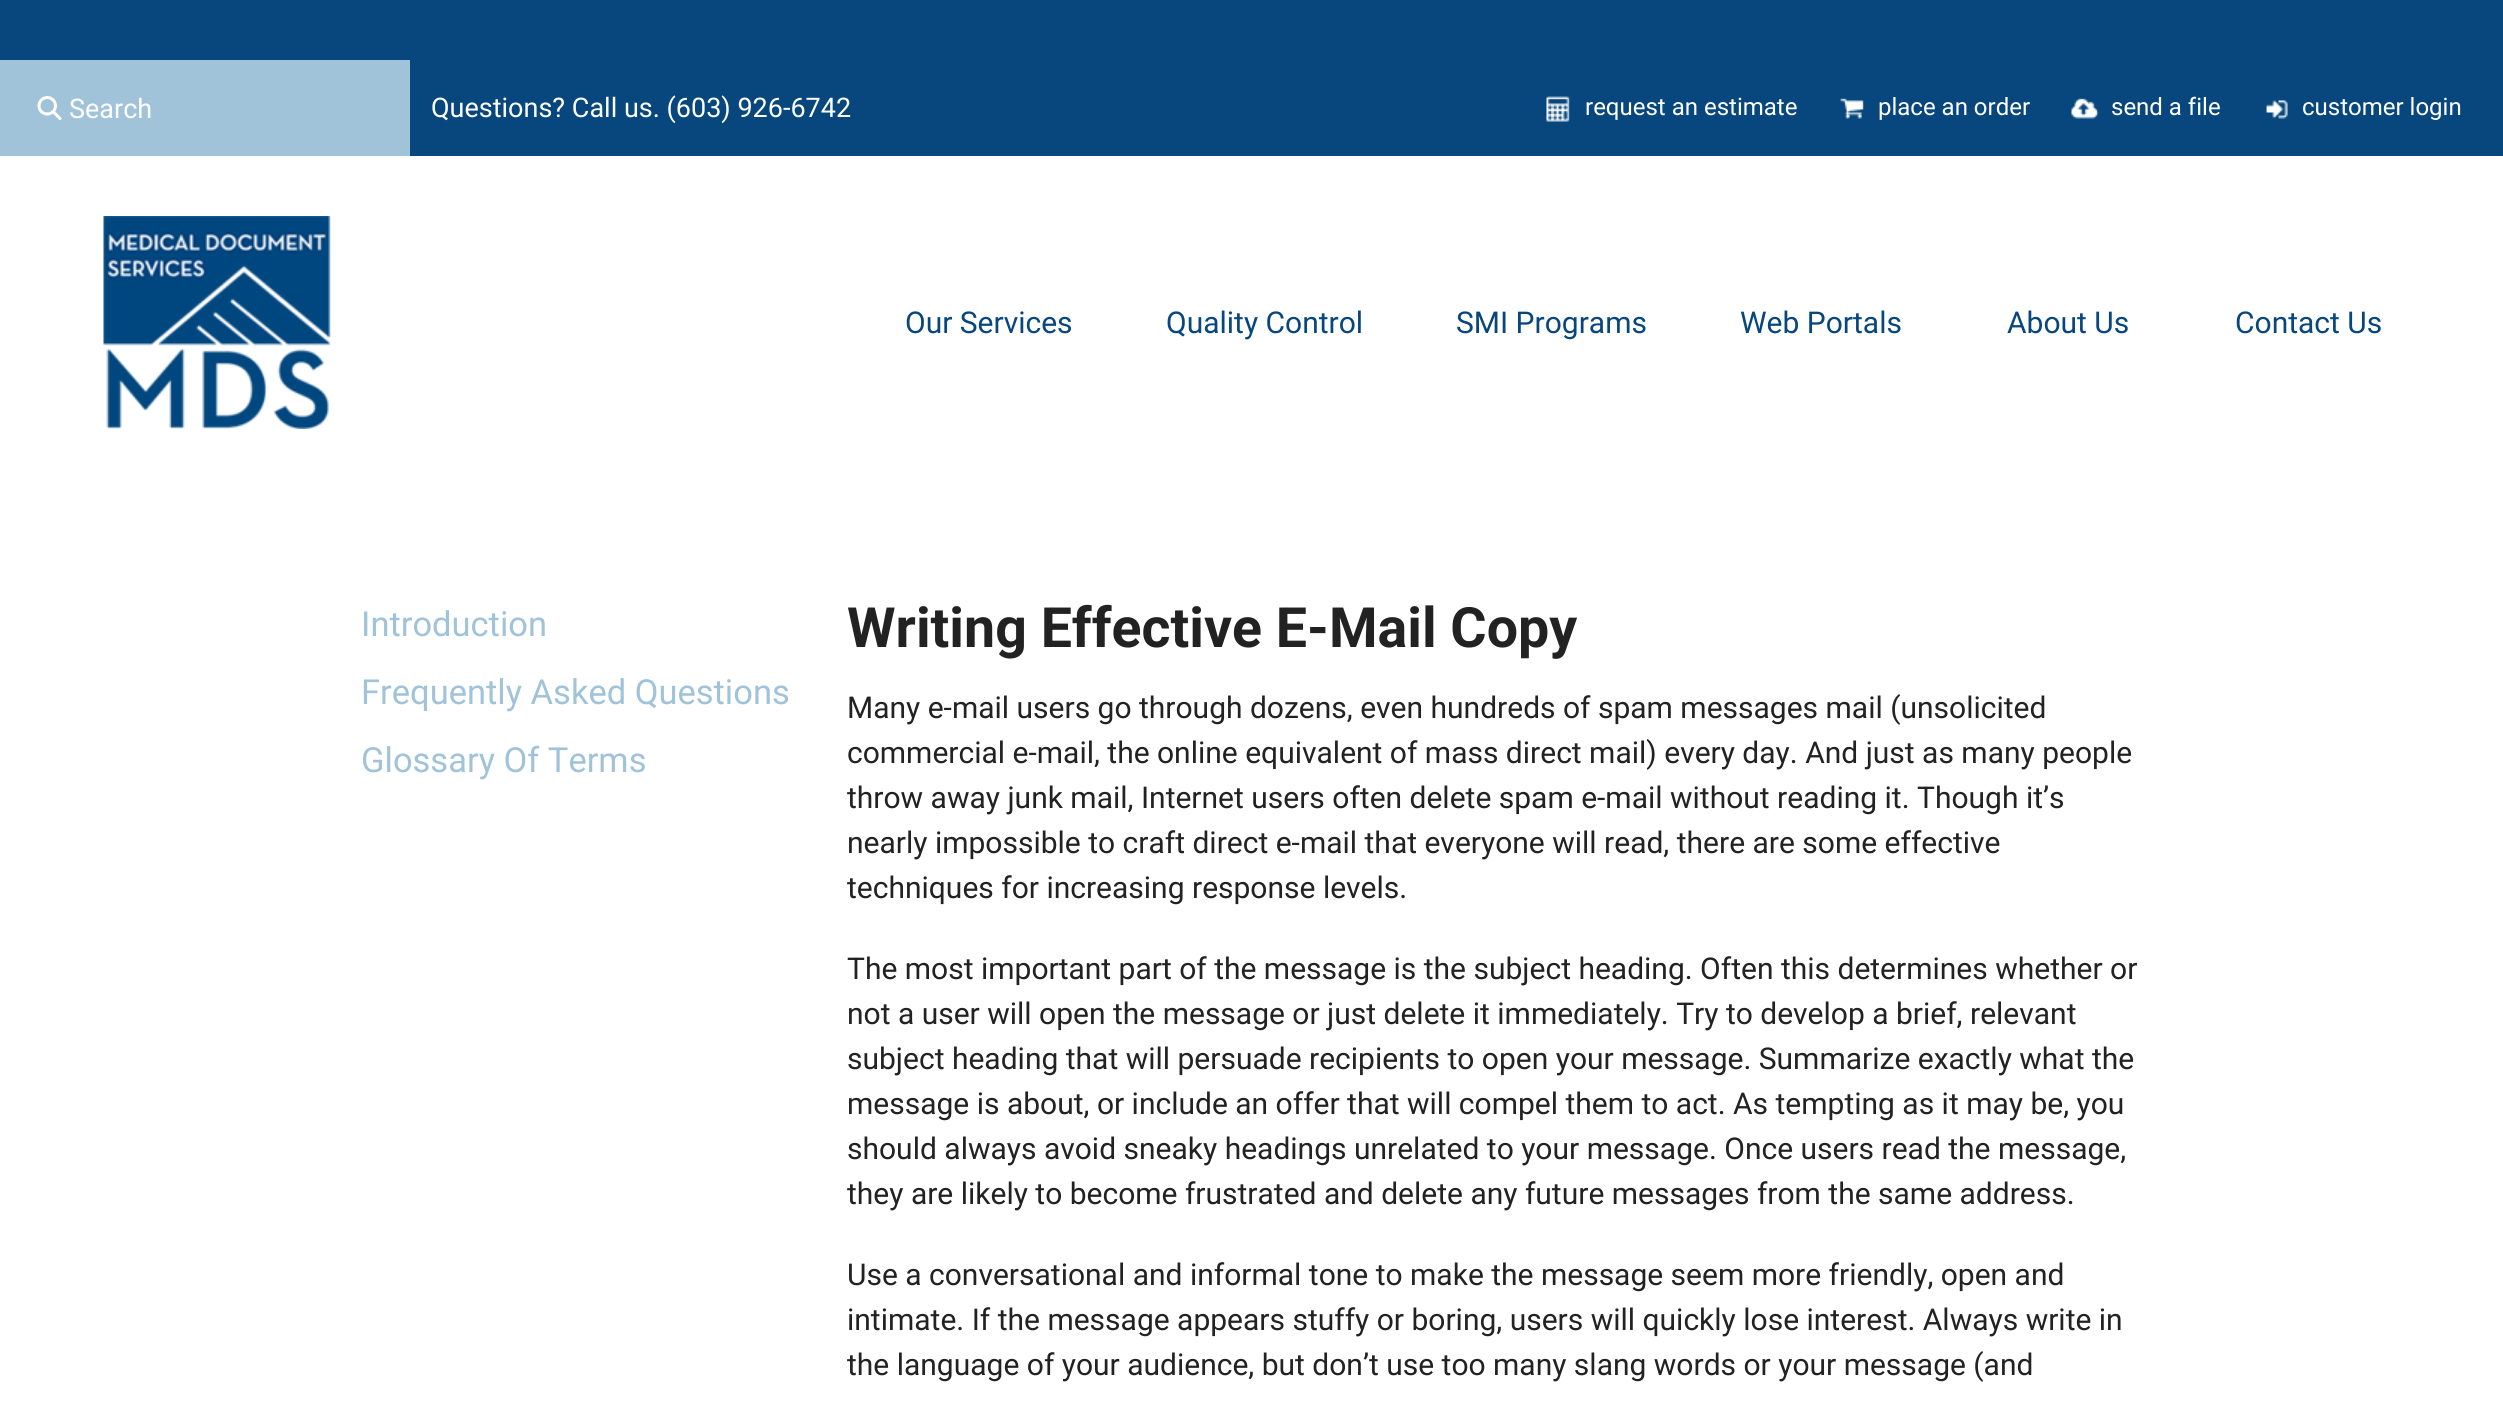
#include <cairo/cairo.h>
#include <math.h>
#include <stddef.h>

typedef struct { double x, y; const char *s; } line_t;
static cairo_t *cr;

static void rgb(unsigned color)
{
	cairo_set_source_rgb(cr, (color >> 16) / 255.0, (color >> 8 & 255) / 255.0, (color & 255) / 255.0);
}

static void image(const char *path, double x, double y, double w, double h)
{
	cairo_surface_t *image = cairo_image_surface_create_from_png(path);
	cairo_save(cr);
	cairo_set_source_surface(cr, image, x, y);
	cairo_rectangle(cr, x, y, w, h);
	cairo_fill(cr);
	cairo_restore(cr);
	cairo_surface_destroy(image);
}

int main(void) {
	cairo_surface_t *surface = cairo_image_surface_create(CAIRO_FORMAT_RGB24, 2503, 1411);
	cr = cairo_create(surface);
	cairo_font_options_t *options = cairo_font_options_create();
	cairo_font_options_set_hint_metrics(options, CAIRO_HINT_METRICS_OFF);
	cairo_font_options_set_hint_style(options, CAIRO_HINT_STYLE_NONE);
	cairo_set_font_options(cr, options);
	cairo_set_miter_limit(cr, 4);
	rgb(0x07477d);
	cairo_paint(cr);
	rgb(0xffffff);
	cairo_rectangle(cr, 0, 156, 2503, 1255);
	cairo_fill(cr);
	rgb(0xa0c3da);
	cairo_rectangle(cr, 0, 60, 410, 96);
	cairo_fill(cr);
	image("img/1.png", 37, 96, 25, 24);
	image("img/2.png", 1546, 96, 24, 26);
	image("img/3.png", 1840, 98, 24, 21);
	image("img/4.png", 2071, 98, 28, 21);
	image("img/5.png", 2266, 100, 22, 19);
	image("img/6.png", 103, 216, 228, 213);
	cairo_select_font_face(cr, "Roboto", CAIRO_FONT_SLANT_NORMAL, CAIRO_FONT_WEIGHT_NORMAL);
	cairo_set_font_size(cr, 27);
	rgb(0xffffff);
	cairo_move_to(cr, 69, 118);
	cairo_show_text(cr, "Search");
	cairo_move_to(cr, 431, 117);
	cairo_show_text(cr, "Questions? Call us. (603) 926-6742");
	cairo_set_font_size(cr, 24);
	{
		static const line_t items[] = {
			{1585, 115, "request an estimate"},
			{1878, 115, "place an order"},
			{2111, 115, "send a file"},
			{2302, 115, "customer login"},
		};
		for (size_t i = 0; i < sizeof items / sizeof *items; i++) {
			cairo_move_to(cr, items[i].x, items[i].y);
			cairo_show_text(cr, items[i].s);
		}
	}
	cairo_set_font_size(cr, 30);
	rgb(0x07477d);
	{
		static const line_t items[] = {
			{905, 333, "Our Services"},
			{1166, 333, "Quality Control"},
			{1456, 333, "SMI Programs"},
			{1740, 333, "Web Portals"},
			{2007, 333, "About Us"},
			{2235, 333, "Contact Us"},
		};
		for (size_t i = 0; i < sizeof items / sizeof *items; i++) {
			cairo_move_to(cr, items[i].x, items[i].y);
			cairo_show_text(cr, items[i].s);
		}
	}
	cairo_set_font_size(cr, 34.5);
	rgb(0xa0c3da);
	{
		static const line_t items[] = {
			{361, 636, "Introduction"},
			{361, 704, "Frequently Asked Questions"},
			{361, 772, "Glossary Of Terms"},
		};
		for (size_t i = 0; i < sizeof items / sizeof *items; i++) {
			cairo_move_to(cr, items[i].x, items[i].y);
			cairo_show_text(cr, items[i].s);
		}
	}
	cairo_select_font_face(cr, "Roboto", CAIRO_FONT_SLANT_NORMAL, CAIRO_FONT_WEIGHT_BOLD);
	cairo_set_font_size(cr, 55.5);
	rgb(0x222222);
	cairo_move_to(cr, 847, 647);
	cairo_show_text(cr, "Writing Effective E-Mail Copy");
	cairo_select_font_face(cr, "Roboto", CAIRO_FONT_SLANT_NORMAL, CAIRO_FONT_WEIGHT_NORMAL);
	cairo_set_font_size(cr, 30);
	{
		static const line_t items[] = {
			{847, 718, "Many e-mail users go through dozens, even hundreds of spam messages mail (unsolicited"},
			{847, 763, "commercial e-mail, the online equivalent of mass direct mail) every day. And just as many people"},
			{847, 808, "throw away junk mail, Internet users often delete spam e-mail without reading it. Though it’s"},
			{847, 853, "nearly impossible to craft direct e-mail that everyone will read, there are some effective"},
			{847, 898, "techniques for increasing response levels."},
			{847, 979, "The most important part of the message is the subject heading. Often this determines whether or"},
			{847, 1024, "not a user will open the message or just delete it immediately. Try to develop a brief, relevant"},
			{847, 1069, "subject heading that will persuade recipients to open your message. Summarize exactly what the"},
			{847, 1114, "message is about, or include an offer that will compel them to act. As tempting as it may be, you"},
			{847, 1159, "should always avoid sneaky headings unrelated to your message. Once users read the message,"},
			{847, 1204, "they are likely to become frustrated and delete any future messages from the same address."},
			{847, 1285, "Use a conversational and informal tone to make the message seem more friendly, open and"},
			{847, 1330, "intimate. If the message appears stuffy or boring, users will quickly lose interest. Always write in"},
			{847, 1375, "the language of your audience, but don’t use too many slang words or your message (and"},
		};
		for (size_t i = 0; i < sizeof items / sizeof *items; i++) {
			cairo_move_to(cr, items[i].x, items[i].y);
			cairo_show_text(cr, items[i].s);
		}
	}
	cairo_surface_write_to_png(surface, "page.png");
	cairo_font_options_destroy(options);
	cairo_destroy(cr);
	cairo_surface_destroy(surface);
	return 0;
}
